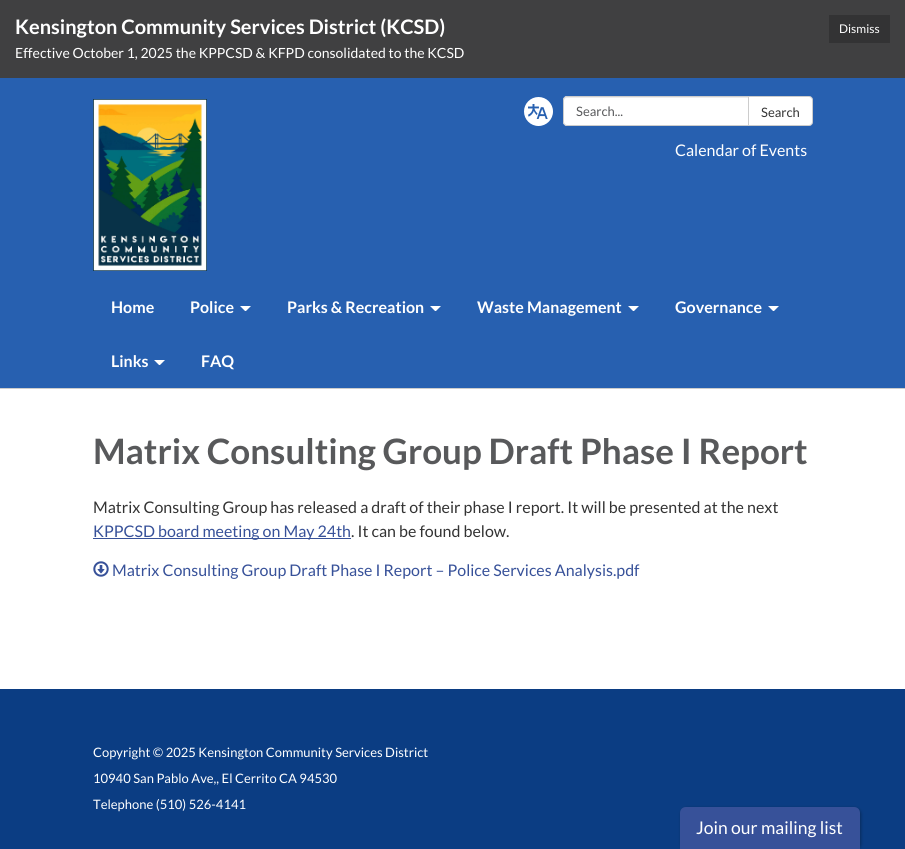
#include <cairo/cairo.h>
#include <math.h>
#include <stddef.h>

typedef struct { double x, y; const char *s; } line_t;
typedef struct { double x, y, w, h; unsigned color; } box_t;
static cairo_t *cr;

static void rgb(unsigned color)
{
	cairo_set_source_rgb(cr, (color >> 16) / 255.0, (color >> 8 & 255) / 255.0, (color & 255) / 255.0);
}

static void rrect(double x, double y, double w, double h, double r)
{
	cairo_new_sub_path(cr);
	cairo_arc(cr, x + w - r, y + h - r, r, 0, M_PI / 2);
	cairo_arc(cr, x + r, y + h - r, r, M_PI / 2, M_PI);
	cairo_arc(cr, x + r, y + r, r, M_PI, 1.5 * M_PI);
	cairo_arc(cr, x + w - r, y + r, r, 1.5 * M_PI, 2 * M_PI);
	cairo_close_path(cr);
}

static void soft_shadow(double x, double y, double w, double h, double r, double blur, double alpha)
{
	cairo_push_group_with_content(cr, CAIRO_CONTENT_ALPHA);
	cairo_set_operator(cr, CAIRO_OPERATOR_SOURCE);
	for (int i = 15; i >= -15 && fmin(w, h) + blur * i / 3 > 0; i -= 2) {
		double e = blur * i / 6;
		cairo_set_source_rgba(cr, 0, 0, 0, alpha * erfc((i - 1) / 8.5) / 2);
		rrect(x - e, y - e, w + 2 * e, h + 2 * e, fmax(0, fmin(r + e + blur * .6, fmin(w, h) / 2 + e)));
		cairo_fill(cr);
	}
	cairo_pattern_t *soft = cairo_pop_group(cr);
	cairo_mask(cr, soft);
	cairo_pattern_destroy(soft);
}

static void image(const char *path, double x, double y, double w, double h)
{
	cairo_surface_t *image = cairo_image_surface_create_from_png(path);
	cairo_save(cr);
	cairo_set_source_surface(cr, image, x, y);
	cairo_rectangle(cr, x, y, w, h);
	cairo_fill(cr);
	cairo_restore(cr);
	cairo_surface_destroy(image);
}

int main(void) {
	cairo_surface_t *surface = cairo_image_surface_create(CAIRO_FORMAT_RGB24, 905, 849);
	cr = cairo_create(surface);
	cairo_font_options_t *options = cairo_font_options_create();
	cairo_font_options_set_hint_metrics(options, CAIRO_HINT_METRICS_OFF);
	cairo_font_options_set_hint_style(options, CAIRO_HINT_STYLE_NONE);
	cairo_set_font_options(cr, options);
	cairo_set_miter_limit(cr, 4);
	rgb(0x0b3d83);
	cairo_paint(cr);
	{
		static const box_t items[] = {
			{0, 0, 905, 78, 0x404041},
			{829, 15, 61, 28, 0x333334},
			{0, 78, 905, 310, 0x2760b0},
		};
		for (size_t i = 0; i < sizeof items / sizeof *items; i++) {
			rgb(items[i].color);
			cairo_rectangle(cr, items[i].x, items[i].y, items[i].w, items[i].h);
			cairo_fill(cr);
		}
	}
	image("img/1.png", 93, 99, 114, 172);
	rgb(0xffffff);
	cairo_arc(cr, 538.5, 111.5, 14.5, 0, 2 * M_PI);
	cairo_fill(cr);
	image("img/2.png", 528, 104, 20, 15);
	cairo_new_path(cr);
	cairo_move_to(cr, 567, 96);
	cairo_line_to(cr, 749, 96);
	cairo_line_to(cr, 749, 126);
	cairo_line_to(cr, 567, 126);
	cairo_curve_to(cr, 565, 126, 563, 124, 563, 122);
	cairo_line_to(cr, 563, 100);
	cairo_curve_to(cr, 563, 98, 565, 96, 567, 96);
	cairo_close_path(cr);
	cairo_fill(cr);
	rgb(0xececec);
	cairo_new_path(cr);
	cairo_move_to(cr, 567, 98);
	cairo_line_to(cr, 748, 98);
	cairo_line_to(cr, 748, 97);
	cairo_line_to(cr, 566, 97);
	cairo_curve_to(cr, 564, 98, 564, 99, 564, 101);
	cairo_curve_to(cr, 564, 99, 565, 98, 567, 98);
	cairo_close_path(cr);
	cairo_fill(cr);
	cairo_new_path(cr);
	cairo_move_to(cr, 567, 96.5);
	cairo_line_to(cr, 748.5, 96.5);
	cairo_line_to(cr, 748.5, 125.5);
	cairo_line_to(cr, 567, 125.5);
	cairo_curve_to(cr, 565, 125.5, 563.5, 124, 563.5, 122);
	cairo_line_to(cr, 563.5, 100);
	cairo_curve_to(cr, 563.5, 98, 565, 96.5, 567, 96.5);
	cairo_close_path(cr);
	rgb(0xcccccc);
	cairo_set_line_width(cr, 1);
	cairo_stroke(cr);
	rgb(0xffffff);
	cairo_new_path(cr);
	cairo_move_to(cr, 748.5, 96.5);
	cairo_line_to(cr, 809, 96.5);
	cairo_curve_to(cr, 811, 96.5, 812.5, 98, 812.5, 100);
	cairo_line_to(cr, 812.5, 122);
	cairo_curve_to(cr, 812.5, 124, 811, 125.5, 809, 125.5);
	cairo_line_to(cr, 748.5, 125.5);
	cairo_close_path(cr);
	cairo_fill_preserve(cr);
	rgb(0xcccccc);
	cairo_stroke(cr);
	rgb(0xffffff);
	cairo_new_path(cr);
	cairo_move_to(cr, 240, 306);
	cairo_line_to(cr, 251, 306);
	cairo_line_to(cr, 246, 311);
	cairo_line_to(cr, 245, 311);
	cairo_close_path(cr);
	cairo_fill(cr);
	cairo_new_path(cr);
	cairo_move_to(cr, 430, 306);
	cairo_line_to(cr, 441, 306);
	cairo_line_to(cr, 436, 311);
	cairo_line_to(cr, 435, 311);
	cairo_close_path(cr);
	cairo_fill(cr);
	cairo_new_path(cr);
	cairo_move_to(cr, 628, 306);
	cairo_line_to(cr, 639, 306);
	cairo_line_to(cr, 634, 311);
	cairo_line_to(cr, 633, 311);
	cairo_close_path(cr);
	cairo_fill(cr);
	cairo_new_path(cr);
	cairo_move_to(cr, 768, 306);
	cairo_line_to(cr, 779, 306);
	cairo_line_to(cr, 774, 311);
	cairo_line_to(cr, 773, 311);
	cairo_close_path(cr);
	cairo_fill(cr);
	cairo_new_path(cr);
	cairo_move_to(cr, 154, 360);
	cairo_line_to(cr, 165, 360);
	cairo_line_to(cr, 160, 365);
	cairo_line_to(cr, 159, 365);
	cairo_close_path(cr);
	cairo_fill(cr);
	{
		static const box_t items[] = {
			{0, 389, 905, 300, 0xffffff},
			{0, 388, 905, 1, 0xcccccc},
			{93, 538, 258, 1, 0x375199},
		};
		for (size_t i = 0; i < sizeof items / sizeof *items; i++) {
			rgb(items[i].color);
			cairo_rectangle(cr, items[i].x, items[i].y, items[i].w, items[i].h);
			cairo_fill(cr);
		}
	}
	image("img/3.png", 93, 561, 16, 16);
	rgb(0x000000);
	soft_shadow(681, 808, 180, 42, 6, 1.5, 0.3);
	rgb(0x375199);
	cairo_new_path(cr);
	cairo_move_to(cr, 686, 807);
	cairo_line_to(cr, 854, 807);
	cairo_curve_to(cr, 857.5, 807, 860, 809.5, 860, 813);
	cairo_line_to(cr, 860, 849);
	cairo_line_to(cr, 680, 849);
	cairo_line_to(cr, 680, 813);
	cairo_curve_to(cr, 680, 809.5, 682.5, 807, 686, 807);
	cairo_close_path(cr);
	cairo_fill(cr);
	cairo_select_font_face(cr, "Lato", CAIRO_FONT_SLANT_NORMAL, CAIRO_FONT_WEIGHT_BOLD);
	cairo_set_font_size(cr, 20);
	rgb(0xffffff);
	cairo_move_to(cr, 15, 34);
	cairo_show_text(cr, "Kensington Community Services District (KCSD)");
	cairo_select_font_face(cr, "Lato", CAIRO_FONT_SLANT_NORMAL, CAIRO_FONT_WEIGHT_NORMAL);
	cairo_set_font_size(cr, 12);
	cairo_move_to(cr, 839, 33);
	cairo_show_text(cr, "Dismiss");
	cairo_set_font_size(cr, 14);
	cairo_move_to(cr, 15, 58);
	cairo_show_text(cr, "Effective October 1, 2025 the KPPCSD & KFPD consolidated to the KCSD");
	cairo_set_font_size(cr, 13);
	rgb(0x58595b);
	cairo_move_to(cr, 576, 116);
	cairo_show_text(cr, "Search...");
	rgb(0x333333);
	cairo_move_to(cr, 761, 117);
	cairo_show_text(cr, "Search");
	cairo_set_font_size(cr, 16);
	rgb(0xffffff);
	cairo_move_to(cr, 675, 156);
	cairo_show_text(cr, "Calendar of Events");
	cairo_select_font_face(cr, "Lato", CAIRO_FONT_SLANT_NORMAL, CAIRO_FONT_WEIGHT_BOLD);
	{
		static const line_t items[] = {
			{111, 313, "Home"},
			{190, 313, "Police"},
			{287, 313, "Parks & Recreation"},
			{477, 313, "Waste Management"},
			{675, 313, "Governance"},
			{111, 367, "Links"},
			{201, 367, "FAQ"},
		};
		for (size_t i = 0; i < sizeof items / sizeof *items; i++) {
			cairo_move_to(cr, items[i].x, items[i].y);
			cairo_show_text(cr, items[i].s);
		}
	}
	cairo_set_font_size(cr, 35);
	rgb(0x58595b);
	cairo_move_to(cr, 93, 464);
	cairo_show_text(cr, "Matrix Consulting Group Draft Phase I Report");
	cairo_select_font_face(cr, "Lato", CAIRO_FONT_SLANT_NORMAL, CAIRO_FONT_WEIGHT_NORMAL);
	cairo_set_font_size(cr, 16);
	rgb(0x333333);
	cairo_move_to(cr, 93, 513);
	cairo_show_text(cr, "Matrix Consulting Group has released a draft of their phase I report. It will be presented at the next");
	rgb(0x375199);
	cairo_move_to(cr, 93, 537);
	cairo_show_text(cr, "KPPCSD board meeting on May 24th");
	rgb(0x333333);
	cairo_move_to(cr, 351, 537);
	cairo_show_text(cr, ". It can be found below.");
	rgb(0x375199);
	cairo_move_to(cr, 112, 576);
	cairo_show_text(cr, "Matrix Consulting Group Draft Phase I Report – Police Services Analysis.pdf");
	cairo_set_font_size(cr, 13);
	rgb(0xffffff);
	{
		static const line_t items[] = {
			{93, 757, "Copyright © 2025 Kensington Community Services District"},
			{93, 783, "10940 San Pablo Ave,, El Cerrito CA 94530"},
			{93, 809, "Telephone (510) 526-4141"},
		};
		for (size_t i = 0; i < sizeof items / sizeof *items; i++) {
			cairo_move_to(cr, items[i].x, items[i].y);
			cairo_show_text(cr, items[i].s);
		}
	}
	cairo_set_font_size(cr, 17.5);
	cairo_move_to(cr, 696, 834);
	cairo_show_text(cr, "Join our mailing list");
	cairo_surface_write_to_png(surface, "page.png");
	cairo_font_options_destroy(options);
	cairo_destroy(cr);
	cairo_surface_destroy(surface);
	return 0;
}
